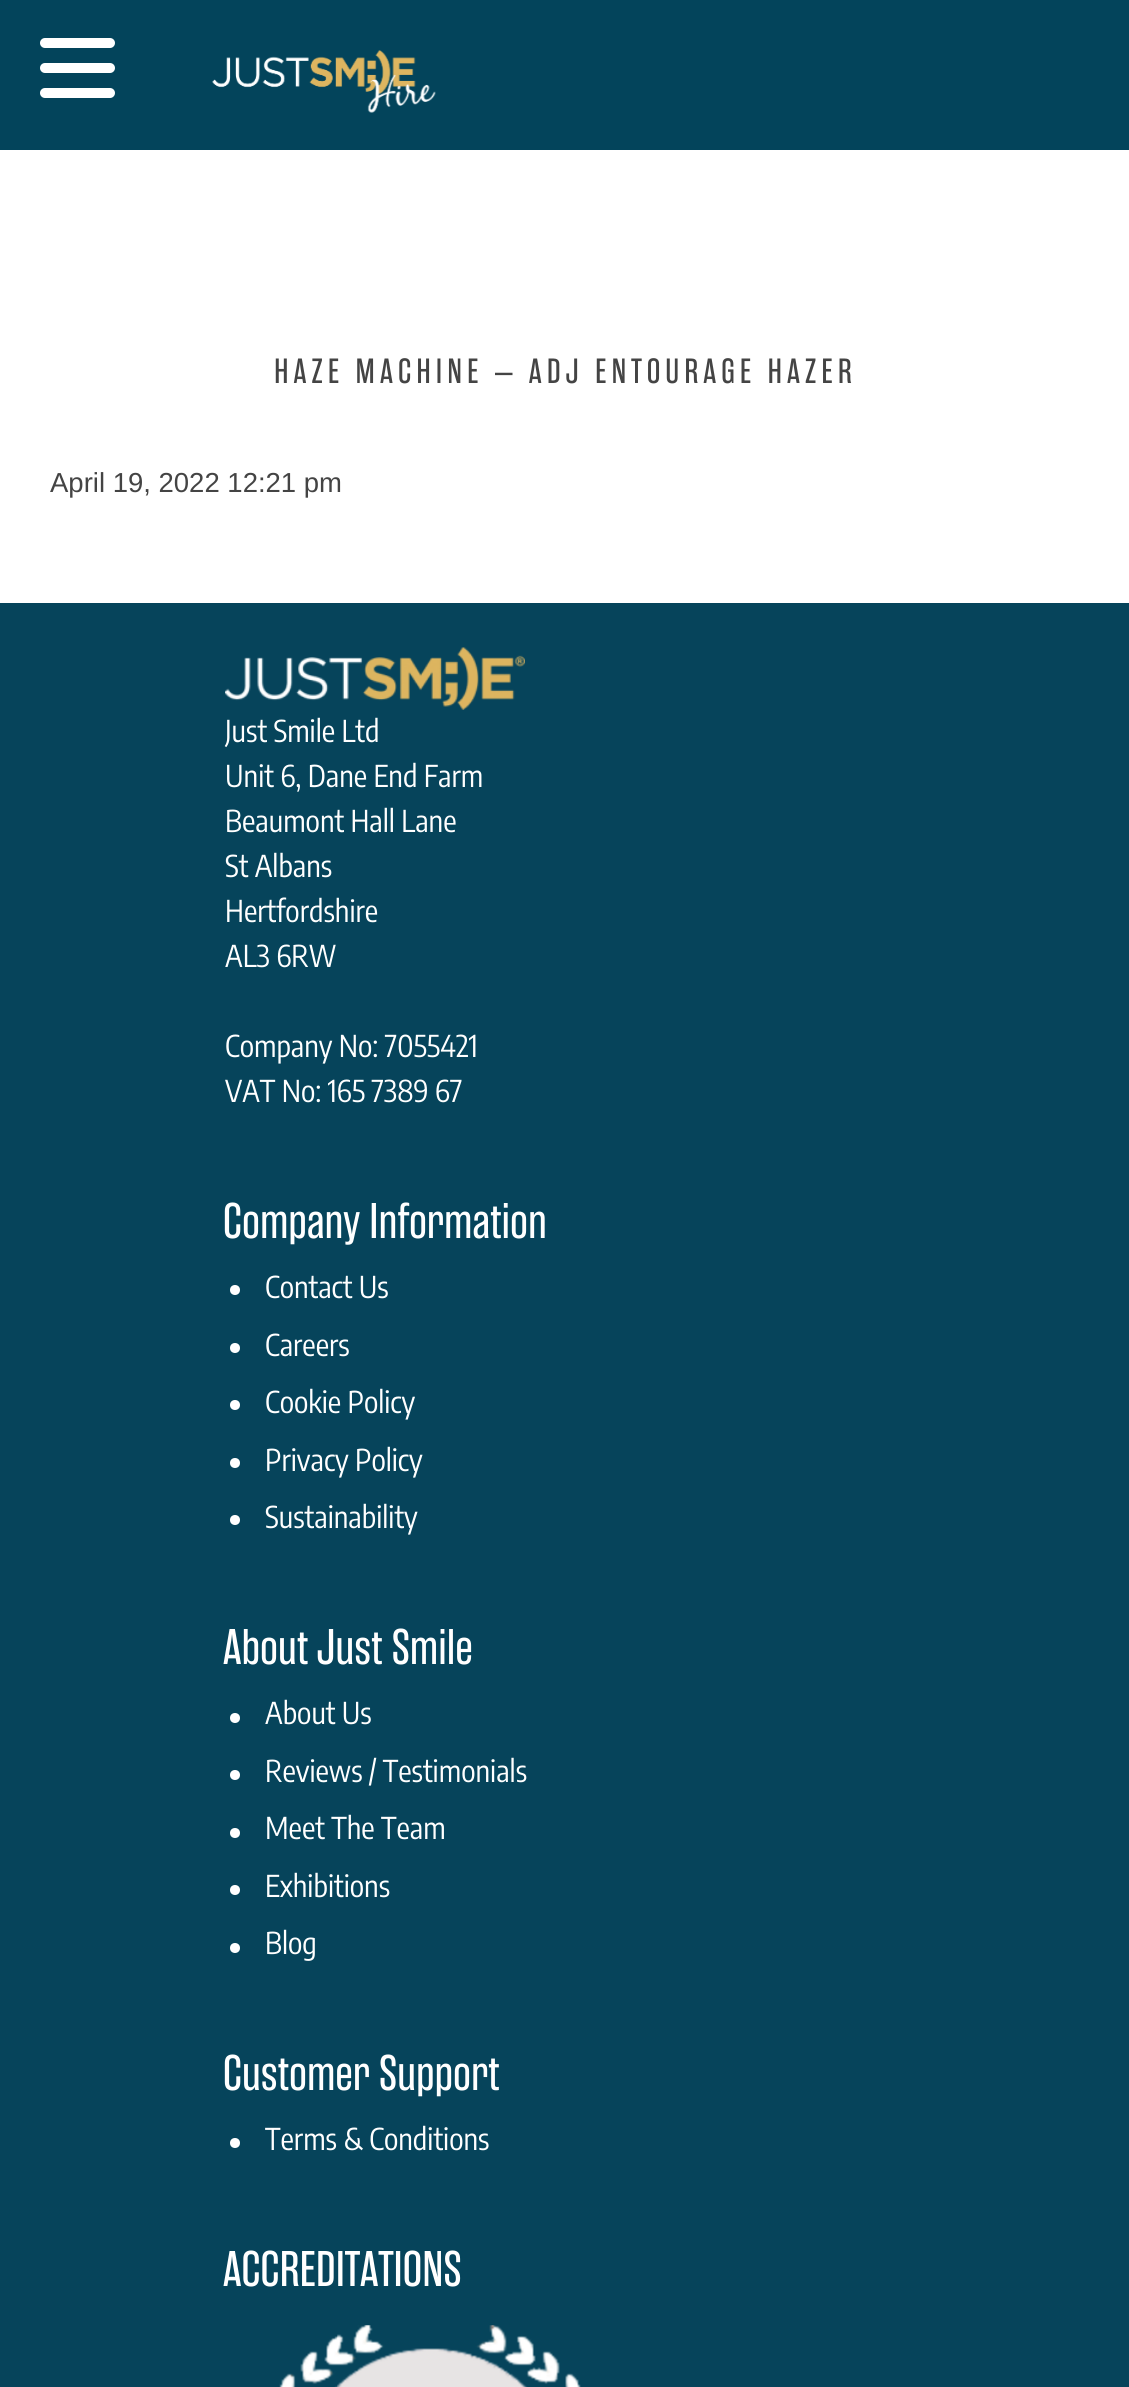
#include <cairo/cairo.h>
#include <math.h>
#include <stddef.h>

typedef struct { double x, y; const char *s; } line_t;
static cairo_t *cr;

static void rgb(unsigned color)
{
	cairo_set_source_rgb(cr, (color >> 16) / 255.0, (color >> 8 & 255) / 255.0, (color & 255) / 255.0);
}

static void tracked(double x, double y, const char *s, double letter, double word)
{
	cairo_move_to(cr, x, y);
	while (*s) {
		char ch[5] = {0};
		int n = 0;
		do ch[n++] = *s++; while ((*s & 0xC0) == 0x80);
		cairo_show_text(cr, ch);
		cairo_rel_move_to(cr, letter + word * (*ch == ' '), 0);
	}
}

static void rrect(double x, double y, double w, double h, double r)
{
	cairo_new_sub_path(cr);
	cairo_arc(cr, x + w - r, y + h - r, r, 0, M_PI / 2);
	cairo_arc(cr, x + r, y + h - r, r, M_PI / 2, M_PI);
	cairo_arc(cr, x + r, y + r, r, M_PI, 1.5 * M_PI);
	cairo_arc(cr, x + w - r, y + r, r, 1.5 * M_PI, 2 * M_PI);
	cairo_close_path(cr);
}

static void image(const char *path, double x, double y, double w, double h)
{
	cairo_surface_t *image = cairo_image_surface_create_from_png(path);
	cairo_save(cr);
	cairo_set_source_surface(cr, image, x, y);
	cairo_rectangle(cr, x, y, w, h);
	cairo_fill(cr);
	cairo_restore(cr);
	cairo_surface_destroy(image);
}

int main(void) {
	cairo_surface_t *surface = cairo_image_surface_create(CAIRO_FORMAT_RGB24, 1129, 2387);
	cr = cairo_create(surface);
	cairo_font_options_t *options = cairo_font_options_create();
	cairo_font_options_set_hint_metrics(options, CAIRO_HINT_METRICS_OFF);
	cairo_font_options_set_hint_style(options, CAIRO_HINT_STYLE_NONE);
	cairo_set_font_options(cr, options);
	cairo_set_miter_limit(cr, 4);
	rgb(0xffffff);
	cairo_paint(cr);
	rgb(0x03445b);
	cairo_rectangle(cr, 0, 0, 1129, 150);
	cairo_fill(cr);
	rgb(0xffffff);
	rrect(40, 38, 75, 10, 5);
	cairo_fill(cr);
	rrect(40, 63, 75, 10, 5);
	cairo_fill(cr);
	rrect(40, 88, 75, 10, 5);
	cairo_fill(cr);
	image("img/1.png", 212, 50, 224, 63);
	rgb(0x06445b);
	cairo_rectangle(cr, 0, 603, 1129, 1784);
	cairo_fill(cr);
	image("img/2.png", 225, 647, 300, 63);
	rgb(0xffffff);
	cairo_arc(cr, 235, 1290, 5, 0, 2 * M_PI);
	cairo_fill(cr);
	cairo_arc(cr, 235, 1348, 5, 0, 2 * M_PI);
	cairo_fill(cr);
	cairo_arc(cr, 235, 1405, 5, 0, 2 * M_PI);
	cairo_fill(cr);
	cairo_arc(cr, 235, 1463, 5, 0, 2 * M_PI);
	cairo_fill(cr);
	cairo_arc(cr, 235, 1520, 5, 0, 2 * M_PI);
	cairo_fill(cr);
	cairo_arc(cr, 235, 1718, 5, 0, 2 * M_PI);
	cairo_fill(cr);
	cairo_arc(cr, 235, 1775, 5, 0, 2 * M_PI);
	cairo_fill(cr);
	cairo_arc(cr, 235, 1833, 5, 0, 2 * M_PI);
	cairo_fill(cr);
	cairo_arc(cr, 235, 1890, 5, 0, 2 * M_PI);
	cairo_fill(cr);
	cairo_arc(cr, 235, 1948, 5, 0, 2 * M_PI);
	cairo_fill(cr);
	cairo_arc(cr, 235, 2143, 5, 0, 2 * M_PI);
	cairo_fill(cr);
	image("img/3.png", 279, 2325, 302, 62);
	cairo_select_font_face(cr, "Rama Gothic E", CAIRO_FONT_SLANT_NORMAL, CAIRO_FONT_WEIGHT_NORMAL);
	cairo_set_font_size(cr, 35);
	rgb(0x444444);
	tracked(274, 383, "HAZE MACHINE – ADJ ENTOURAGE HAZER", 5, 0);
	cairo_select_font_face(cr, "Liberation Sans", CAIRO_FONT_SLANT_NORMAL, CAIRO_FONT_WEIGHT_NORMAL);
	cairo_set_font_size(cr, 27.5);
	cairo_move_to(cr, 50, 492);
	cairo_show_text(cr, "April 19, 2022 12:21 pm");
	cairo_select_font_face(cr, "Encode Sans Condensed", CAIRO_FONT_SLANT_NORMAL, CAIRO_FONT_WEIGHT_NORMAL);
	cairo_set_font_size(cr, 30);
	rgb(0xffffff);
	{
		static const line_t items[] = {
			{225, 742, "Just Smile Ltd"},
			{225, 787, "Unit 6, Dane End Farm"},
			{225, 832, "Beaumont Hall Lane"},
			{225, 877, "St Albans"},
			{225, 922, "Hertfordshire"},
			{225, 967, "AL3 6RW"},
			{225, 1057, "Company No: 7055421"},
			{225, 1102, "VAT No: 165 7389 67"},
		};
		for (size_t i = 0; i < sizeof items / sizeof *items; i++) {
			cairo_move_to(cr, items[i].x, items[i].y);
			cairo_show_text(cr, items[i].s);
		}
	}
	cairo_select_font_face(cr, "Rama Gothic E", CAIRO_FONT_SLANT_NORMAL, CAIRO_FONT_WEIGHT_NORMAL);
	cairo_set_font_size(cr, 50);
	cairo_move_to(cr, 223, 1238);
	cairo_show_text(cr, "Company Information");
	cairo_select_font_face(cr, "Encode Sans Condensed", CAIRO_FONT_SLANT_NORMAL, CAIRO_FONT_WEIGHT_NORMAL);
	cairo_set_font_size(cr, 30);
	{
		static const line_t items[] = {
			{265, 1298, "Contact Us"},
			{265, 1356, "Careers"},
			{265, 1413, "Cookie Policy"},
			{265, 1471, "Privacy Policy"},
			{265, 1528, "Sustainability"},
		};
		for (size_t i = 0; i < sizeof items / sizeof *items; i++) {
			cairo_move_to(cr, items[i].x, items[i].y);
			cairo_show_text(cr, items[i].s);
		}
	}
	cairo_select_font_face(cr, "Rama Gothic E", CAIRO_FONT_SLANT_NORMAL, CAIRO_FONT_WEIGHT_NORMAL);
	cairo_set_font_size(cr, 50);
	cairo_move_to(cr, 223, 1664);
	cairo_show_text(cr, "About Just Smile");
	cairo_select_font_face(cr, "Encode Sans Condensed", CAIRO_FONT_SLANT_NORMAL, CAIRO_FONT_WEIGHT_NORMAL);
	cairo_set_font_size(cr, 30);
	{
		static const line_t items[] = {
			{265, 1724, "About Us"},
			{265, 1782, "Reviews / Testimonials"},
			{265, 1839, "Meet The Team"},
			{265, 1897, "Exhibitions"},
			{265, 1954, "Blog"},
		};
		for (size_t i = 0; i < sizeof items / sizeof *items; i++) {
			cairo_move_to(cr, items[i].x, items[i].y);
			cairo_show_text(cr, items[i].s);
		}
	}
	cairo_select_font_face(cr, "Rama Gothic E", CAIRO_FONT_SLANT_NORMAL, CAIRO_FONT_WEIGHT_NORMAL);
	cairo_set_font_size(cr, 50);
	cairo_move_to(cr, 223, 2090);
	cairo_show_text(cr, "Customer Support");
	cairo_select_font_face(cr, "Encode Sans Condensed", CAIRO_FONT_SLANT_NORMAL, CAIRO_FONT_WEIGHT_NORMAL);
	cairo_set_font_size(cr, 30);
	cairo_move_to(cr, 265, 2150);
	cairo_show_text(cr, "Terms & Conditions");
	cairo_select_font_face(cr, "Rama Gothic E", CAIRO_FONT_SLANT_NORMAL, CAIRO_FONT_WEIGHT_NORMAL);
	cairo_set_font_size(cr, 50);
	cairo_move_to(cr, 223, 2286);
	cairo_show_text(cr, "ACCREDITATIONS");
	cairo_surface_write_to_png(surface, "page.png");
	cairo_font_options_destroy(options);
	cairo_destroy(cr);
	cairo_surface_destroy(surface);
	return 0;
}
